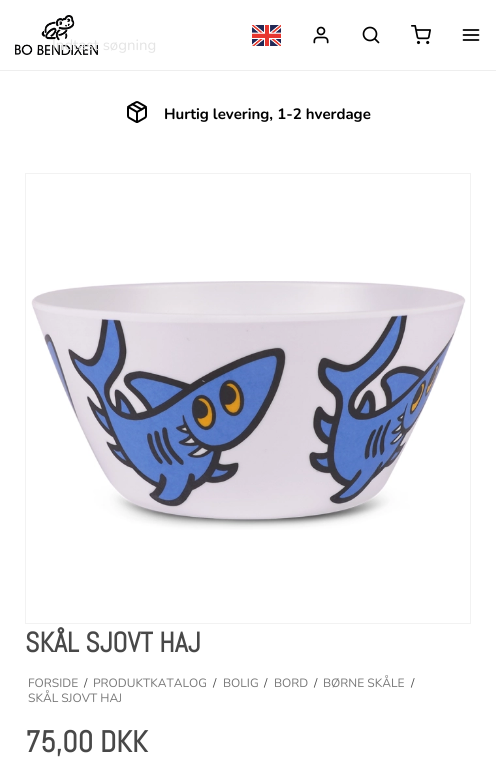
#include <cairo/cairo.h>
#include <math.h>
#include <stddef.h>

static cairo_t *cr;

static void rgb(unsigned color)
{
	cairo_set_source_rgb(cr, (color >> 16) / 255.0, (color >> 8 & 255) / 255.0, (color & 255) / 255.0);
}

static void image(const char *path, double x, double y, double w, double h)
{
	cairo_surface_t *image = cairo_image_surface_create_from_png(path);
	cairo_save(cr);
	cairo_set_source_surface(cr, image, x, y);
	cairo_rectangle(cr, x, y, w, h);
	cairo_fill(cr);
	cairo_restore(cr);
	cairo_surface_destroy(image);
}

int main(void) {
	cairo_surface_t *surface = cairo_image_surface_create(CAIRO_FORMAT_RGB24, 496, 762);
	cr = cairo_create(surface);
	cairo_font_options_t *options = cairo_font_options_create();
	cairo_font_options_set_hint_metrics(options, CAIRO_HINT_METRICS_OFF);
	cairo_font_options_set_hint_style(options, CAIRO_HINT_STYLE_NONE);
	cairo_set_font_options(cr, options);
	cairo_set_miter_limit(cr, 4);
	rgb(0xffffff);
	cairo_paint(cr);
	rgb(0xeeeeee);
	cairo_rectangle(cr, 0, 70, 496, 1);
	cairo_fill(cr);
	image("img/1.png", 15, 15, 83, 40);
	image("img/2.png", 252, 25, 29, 21);
	image("img/3.png", 313, 26, 16, 18);
	image("img/4.png", 411, 25, 20, 20);
	image("img/5.png", 462, 29, 18, 12);
	cairo_arc(cr, 370, 34, 6.5, 0, 2 * M_PI);
	rgb(0x000000);
	cairo_set_line_width(cr, 1.7);
	cairo_stroke(cr);
	cairo_new_path(cr);
	cairo_move_to(cr, 378.5, 42.5);
	cairo_line_to(cr, 375, 39);
	cairo_set_line_cap(cr, CAIRO_LINE_CAP_ROUND);
	cairo_set_line_join(cr, CAIRO_LINE_JOIN_ROUND);
	cairo_stroke(cr);
	image("img/6.png", 127, 101, 20, 22);
	cairo_rectangle(cr, 25.5, 173.5, 445, 450);
	rgb(0xf2f2f2);
	cairo_set_line_width(cr, 1);
	cairo_set_line_cap(cr, CAIRO_LINE_CAP_BUTT);
	cairo_set_line_join(cr, CAIRO_LINE_JOIN_MITER);
	cairo_stroke(cr);
	image("img/7.png", 31, 281, 435, 249);
	cairo_select_font_face(cr, "Nunito", CAIRO_FONT_SLANT_NORMAL, CAIRO_FONT_WEIGHT_NORMAL);
	cairo_set_font_size(cr, 15);
	rgb(0xe4e4e4);
	cairo_move_to(cr, 52, 50);
	cairo_show_text(cr, "Indtast søgning");
	cairo_select_font_face(cr, "Nunito", CAIRO_FONT_SLANT_NORMAL, CAIRO_FONT_WEIGHT_BOLD);
	rgb(0x000000);
	cairo_move_to(cr, 164, 119);
	cairo_show_text(cr, "Hurtig levering, 1-2 hverdage");
	cairo_select_font_face(cr, "Abel", CAIRO_FONT_SLANT_NORMAL, CAIRO_FONT_WEIGHT_BOLD);
	cairo_set_font_size(cr, 28);
	rgb(0x484848);
	cairo_move_to(cr, 25, 652);
	cairo_show_text(cr, "SKÅL SJOVT HAJ");
	cairo_select_font_face(cr, "Nunito", CAIRO_FONT_SLANT_NORMAL, CAIRO_FONT_WEIGHT_NORMAL);
	cairo_set_font_size(cr, 12);
	rgb(0x777777);
	cairo_move_to(cr, 28, 687);
	cairo_show_text(cr, "FORSIDE");
	rgb(0x484848);
	cairo_move_to(cr, 84, 687);
	cairo_show_text(cr, "/");
	rgb(0x777777);
	cairo_move_to(cr, 93, 687);
	cairo_show_text(cr, "PRODUKTKATALOG");
	rgb(0x484848);
	cairo_move_to(cr, 213, 687);
	cairo_show_text(cr, "/");
	rgb(0x777777);
	cairo_move_to(cr, 223, 687);
	cairo_show_text(cr, "BOLIG");
	rgb(0x484848);
	cairo_move_to(cr, 264, 687);
	cairo_show_text(cr, "/");
	rgb(0x777777);
	cairo_move_to(cr, 274, 687);
	cairo_show_text(cr, "BORD");
	rgb(0x484848);
	cairo_move_to(cr, 314, 687);
	cairo_show_text(cr, "/");
	rgb(0x777777);
	cairo_move_to(cr, 323, 687);
	cairo_show_text(cr, "BØRNE SKÅLE");
	rgb(0x484848);
	cairo_move_to(cr, 411, 687);
	cairo_show_text(cr, "/");
	rgb(0x777777);
	cairo_move_to(cr, 28, 702);
	cairo_show_text(cr, "SKÅL SJOVT HAJ");
	cairo_select_font_face(cr, "Abel", CAIRO_FONT_SLANT_NORMAL, CAIRO_FONT_WEIGHT_BOLD);
	cairo_set_font_size(cr, 30);
	rgb(0x484848);
	cairo_move_to(cr, 25, 752);
	cairo_show_text(cr, "75,00 DKK");
	cairo_surface_write_to_png(surface, "page.png");
	cairo_font_options_destroy(options);
	cairo_destroy(cr);
	cairo_surface_destroy(surface);
	return 0;
}
